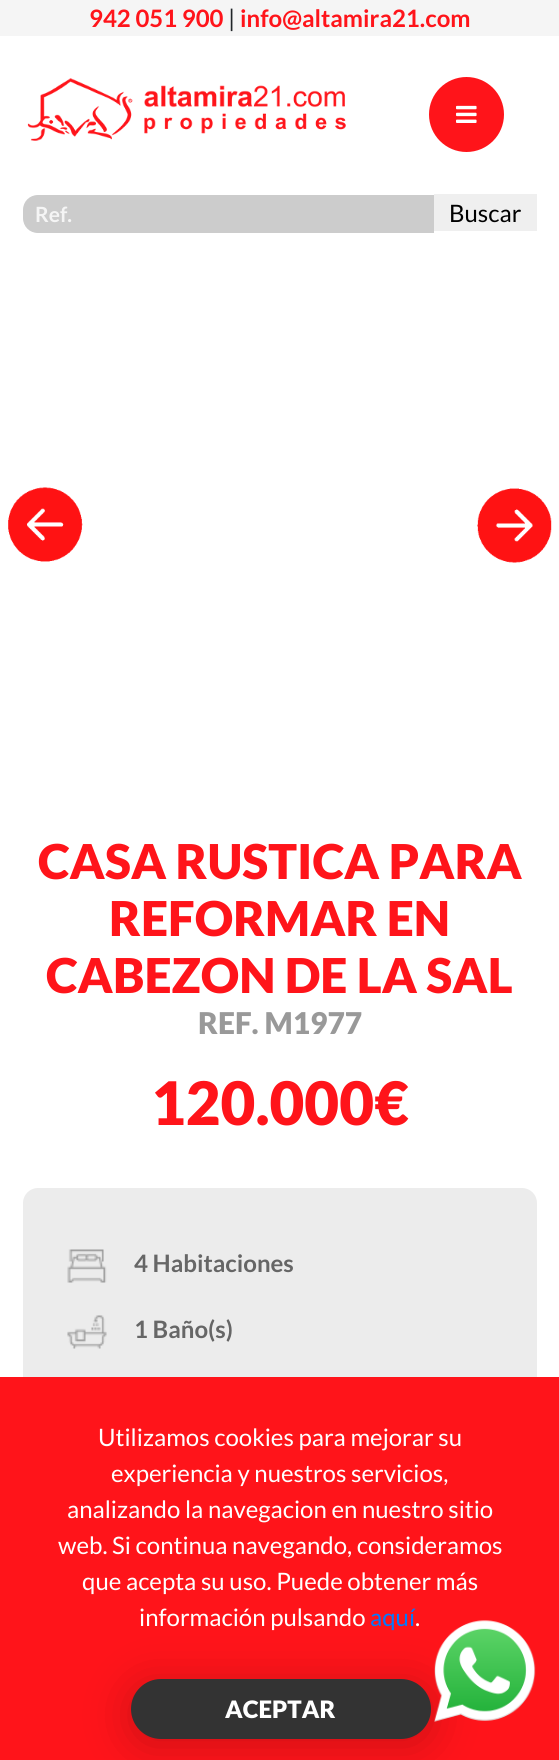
#include <cairo/cairo.h>
#include <math.h>
#include <stddef.h>

typedef struct { double x, y; const char *s; } line_t;
static cairo_t *cr;

static void rgb(unsigned color)
{
	cairo_set_source_rgb(cr, (color >> 16) / 255.0, (color >> 8 & 255) / 255.0, (color & 255) / 255.0);
}

static void rrect(double x, double y, double w, double h, double r)
{
	cairo_new_sub_path(cr);
	cairo_arc(cr, x + w - r, y + h - r, r, 0, M_PI / 2);
	cairo_arc(cr, x + r, y + h - r, r, M_PI / 2, M_PI);
	cairo_arc(cr, x + r, y + r, r, M_PI, 1.5 * M_PI);
	cairo_arc(cr, x + w - r, y + r, r, 1.5 * M_PI, 2 * M_PI);
	cairo_close_path(cr);
}

static void soft_shadow(double x, double y, double w, double h, double r, double blur, double alpha)
{
	cairo_push_group_with_content(cr, CAIRO_CONTENT_ALPHA);
	cairo_set_operator(cr, CAIRO_OPERATOR_SOURCE);
	for (int i = 15; i >= -15 && fmin(w, h) + blur * i / 3 > 0; i -= 2) {
		double e = blur * i / 6;
		cairo_set_source_rgba(cr, 0, 0, 0, alpha * erfc((i - 1) / 8.5) / 2);
		rrect(x - e, y - e, w + 2 * e, h + 2 * e, fmax(0, fmin(r + e + blur * .6, fmin(w, h) / 2 + e)));
		cairo_fill(cr);
	}
	cairo_pattern_t *soft = cairo_pop_group(cr);
	cairo_mask(cr, soft);
	cairo_pattern_destroy(soft);
}

static void image(const char *path, double x, double y, double w, double h)
{
	cairo_surface_t *image = cairo_image_surface_create_from_png(path);
	cairo_save(cr);
	cairo_set_source_surface(cr, image, x, y);
	cairo_rectangle(cr, x, y, w, h);
	cairo_fill(cr);
	cairo_restore(cr);
	cairo_surface_destroy(image);
}

int main(void) {
	cairo_surface_t *surface = cairo_image_surface_create(CAIRO_FORMAT_RGB24, 559, 1760);
	cr = cairo_create(surface);
	cairo_font_options_t *options = cairo_font_options_create();
	cairo_font_options_set_hint_metrics(options, CAIRO_HINT_METRICS_OFF);
	cairo_font_options_set_hint_style(options, CAIRO_HINT_STYLE_NONE);
	cairo_set_font_options(cr, options);
	cairo_set_miter_limit(cr, 4);
	rgb(0xffffff);
	cairo_paint(cr);
	rgb(0xf5f5f5);
	cairo_rectangle(cr, 0, 0, 559, 36);
	cairo_fill(cr);
	image("img/1.png", 27, 78, 319, 63);
	rgb(0xff141a);
	cairo_arc(cr, 466.5, 114.5, 37.5, 0, 2 * M_PI);
	cairo_fill(cr);
	image("img/2.png", 456, 105, 21, 18);
	rgb(0xcccccc);
	cairo_new_path(cr);
	cairo_move_to(cr, 38, 195);
	cairo_line_to(cr, 434, 195);
	cairo_line_to(cr, 434, 233);
	cairo_line_to(cr, 38, 233);
	cairo_curve_to(cr, 29.5, 233, 23, 226.5, 23, 218);
	cairo_line_to(cr, 23, 210);
	cairo_curve_to(cr, 23, 201.5, 29.5, 195, 38, 195);
	cairo_close_path(cr);
	cairo_fill(cr);
	rgb(0xefefef);
	cairo_rectangle(cr, 434, 194, 103, 37);
	cairo_fill(cr);
	image("img/3.png", 8, 487, 75, 75);
	image("img/4.png", 477, 488, 75, 75);
	rgb(0xececec);
	rrect(23, 1188, 514, 420, 15);
	cairo_fill(cr);
	image("img/5.png", 67, 1249, 40, 34);
	image("img/6.png", 67, 1315, 40, 34);
	rgb(0xff141a);
	cairo_rectangle(cr, 0, 1377, 559, 383);
	cairo_fill(cr);
	rgb(0x000000);
	soft_shadow(131, 1685, 300, 60, 30, 22.5, 0.2);
	rgb(0x333333);
	rrect(131, 1679, 300, 60, 30);
	cairo_fill(cr);
	image("img/7.png", 434, 1620, 102, 102);
	cairo_select_font_face(cr, "Lato", CAIRO_FONT_SLANT_NORMAL, CAIRO_FONT_WEIGHT_BOLD);
	cairo_set_font_size(cr, 24);
	rgb(0xff141a);
	cairo_move_to(cr, 89, 27);
	cairo_show_text(cr, "942 051 900");
	cairo_select_font_face(cr, "Lato", CAIRO_FONT_SLANT_NORMAL, CAIRO_FONT_WEIGHT_NORMAL);
	rgb(0x212529);
	cairo_move_to(cr, 228, 27);
	cairo_show_text(cr, "|");
	cairo_select_font_face(cr, "Lato", CAIRO_FONT_SLANT_NORMAL, CAIRO_FONT_WEIGHT_BOLD);
	rgb(0xff141a);
	cairo_move_to(cr, 240, 27);
	cairo_show_text(cr, "info@altamira21.com");
	cairo_set_font_size(cr, 21);
	rgb(0xf5f5f5);
	cairo_move_to(cr, 35, 222);
	cairo_show_text(cr, "Ref.");
	cairo_select_font_face(cr, "Lato", CAIRO_FONT_SLANT_NORMAL, CAIRO_FONT_WEIGHT_NORMAL);
	cairo_set_font_size(cr, 24);
	rgb(0x000000);
	cairo_move_to(cr, 449, 222);
	cairo_show_text(cr, "Buscar");
	cairo_select_font_face(cr, "Lato Black", CAIRO_FONT_SLANT_NORMAL, CAIRO_FONT_WEIGHT_NORMAL);
	cairo_set_font_size(cr, 48);
	rgb(0xff141a);
	{
		static const line_t items[] = {
			{38, 879, "CASA RUSTICA PARA"},
			{109, 936, "REFORMAR EN"},
			{46, 993, "CABEZON DE LA SAL"},
		};
		for (size_t i = 0; i < sizeof items / sizeof *items; i++) {
			cairo_move_to(cr, items[i].x, items[i].y);
			cairo_show_text(cr, items[i].s);
		}
	}
	cairo_set_font_size(cr, 30);
	rgb(0x999999);
	cairo_move_to(cr, 198, 1034);
	cairo_show_text(cr, "REF. M1977");
	cairo_set_font_size(cr, 60);
	rgb(0xff141a);
	cairo_move_to(cr, 151, 1125);
	cairo_show_text(cr, "120.000€");
	cairo_select_font_face(cr, "Lato", CAIRO_FONT_SLANT_NORMAL, CAIRO_FONT_WEIGHT_BOLD);
	cairo_set_font_size(cr, 24);
	rgb(0x666666);
	cairo_move_to(cr, 134, 1272);
	cairo_show_text(cr, "4 Habitaciones");
	cairo_move_to(cr, 134, 1338);
	cairo_show_text(cr, "1 Baño(s)");
	cairo_select_font_face(cr, "Lato", CAIRO_FONT_SLANT_NORMAL, CAIRO_FONT_WEIGHT_NORMAL);
	rgb(0xffffff);
	{
		static const line_t items[] = {
			{98, 1446, "Utilizamos cookies para mejorar su"},
			{111, 1482, "experiencia y nuestros servicios,"},
			{67, 1518, "analizando la navegacion en nuestro sitio"},
			{58, 1554, "web. Si continua navegando, consideramos"},
			{82, 1590, "que acepta su uso. Puede obtener más"},
			{139, 1626, "información pulsando"},
		};
		for (size_t i = 0; i < sizeof items / sizeof *items; i++) {
			cairo_move_to(cr, items[i].x, items[i].y);
			cairo_show_text(cr, items[i].s);
		}
	}
	rgb(0x007bff);
	cairo_move_to(cr, 370, 1626);
	cairo_show_text(cr, "aquí");
	rgb(0xffffff);
	cairo_move_to(cr, 415, 1626);
	cairo_show_text(cr, ".");
	cairo_select_font_face(cr, "Lato Black", CAIRO_FONT_SLANT_NORMAL, CAIRO_FONT_WEIGHT_NORMAL);
	cairo_move_to(cr, 225, 1718);
	cairo_show_text(cr, "ACEPTAR");
	cairo_surface_write_to_png(surface, "page.png");
	cairo_font_options_destroy(options);
	cairo_destroy(cr);
	cairo_surface_destroy(surface);
	return 0;
}
